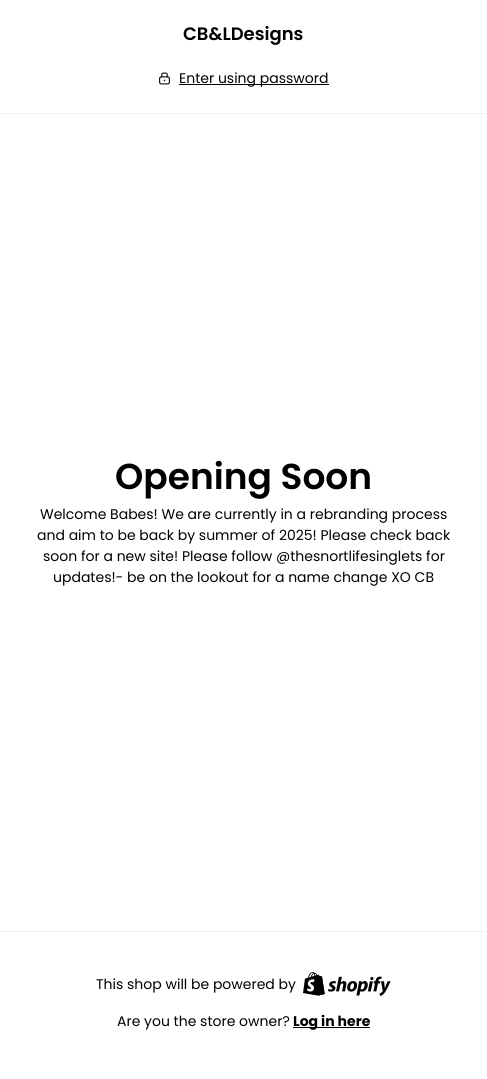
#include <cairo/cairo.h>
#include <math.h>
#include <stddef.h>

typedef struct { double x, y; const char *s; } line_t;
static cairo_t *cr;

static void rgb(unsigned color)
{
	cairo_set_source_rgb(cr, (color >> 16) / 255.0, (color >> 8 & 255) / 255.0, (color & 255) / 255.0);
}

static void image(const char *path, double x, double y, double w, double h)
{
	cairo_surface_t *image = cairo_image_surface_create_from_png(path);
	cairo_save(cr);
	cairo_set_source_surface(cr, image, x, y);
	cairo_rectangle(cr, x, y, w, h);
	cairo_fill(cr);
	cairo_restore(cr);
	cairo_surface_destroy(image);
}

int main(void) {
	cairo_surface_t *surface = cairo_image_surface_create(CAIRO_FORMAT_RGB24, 487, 1079);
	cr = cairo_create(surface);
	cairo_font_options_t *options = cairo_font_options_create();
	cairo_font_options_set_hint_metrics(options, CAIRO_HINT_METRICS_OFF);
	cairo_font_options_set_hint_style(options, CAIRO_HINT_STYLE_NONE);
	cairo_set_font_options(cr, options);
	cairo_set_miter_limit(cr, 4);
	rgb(0xffffff);
	cairo_paint(cr);
	rgb(0xf2f2f2);
	cairo_rectangle(cr, 0, 113, 487, 1);
	cairo_fill(cr);
	image("img/1.png", 159, 72, 11, 13);
	rgb(0x000000);
	cairo_rectangle(cr, 179, 84, 150, 1);
	cairo_fill(cr);
	rgb(0xf2f2f2);
	cairo_rectangle(cr, 0, 931, 487, 1);
	cairo_fill(cr);
	image("img/2.png", 303, 972, 88, 24);
	rgb(0x000000);
	cairo_rectangle(cr, 293, 1027, 77, 1);
	cairo_fill(cr);
	cairo_select_font_face(cr, "Poppins SemiBold", CAIRO_FONT_SLANT_NORMAL, CAIRO_FONT_WEIGHT_NORMAL);
	cairo_set_font_size(cr, 18);
	cairo_move_to(cr, 183, 40);
	cairo_show_text(cr, "CB&LDesigns");
	cairo_select_font_face(cr, "Poppins", CAIRO_FONT_SLANT_NORMAL, CAIRO_FONT_WEIGHT_NORMAL);
	cairo_set_font_size(cr, 14);
	cairo_move_to(cr, 179, 83);
	cairo_show_text(cr, "Enter using password");
	cairo_select_font_face(cr, "Poppins SemiBold", CAIRO_FONT_SLANT_NORMAL, CAIRO_FONT_WEIGHT_NORMAL);
	cairo_set_font_size(cr, 36);
	cairo_move_to(cr, 115, 489);
	cairo_show_text(cr, "Opening Soon");
	cairo_select_font_face(cr, "Poppins", CAIRO_FONT_SLANT_NORMAL, CAIRO_FONT_WEIGHT_NORMAL);
	cairo_set_font_size(cr, 14);
	{
		static const line_t items[] = {
			{40, 519, "Welcome Babes! We are currently in a rebranding process"},
			{37, 540, "and aim to be back by summer of 2025! Please check back"},
			{43, 561, "soon for a new site! Please follow @thesnortlifesinglets for"},
			{53, 582, "updates!- be on the lookout for a name change XO CB"},
			{96, 989, "This shop will be powered by"},
			{117, 1026, "Are you the store owner?"},
		};
		for (size_t i = 0; i < sizeof items / sizeof *items; i++) {
			cairo_move_to(cr, items[i].x, items[i].y);
			cairo_show_text(cr, items[i].s);
		}
	}
	cairo_select_font_face(cr, "Poppins", CAIRO_FONT_SLANT_NORMAL, CAIRO_FONT_WEIGHT_BOLD);
	cairo_move_to(cr, 293, 1026);
	cairo_show_text(cr, "Log in here");
	cairo_surface_write_to_png(surface, "page.png");
	cairo_font_options_destroy(options);
	cairo_destroy(cr);
	cairo_surface_destroy(surface);
	return 0;
}
